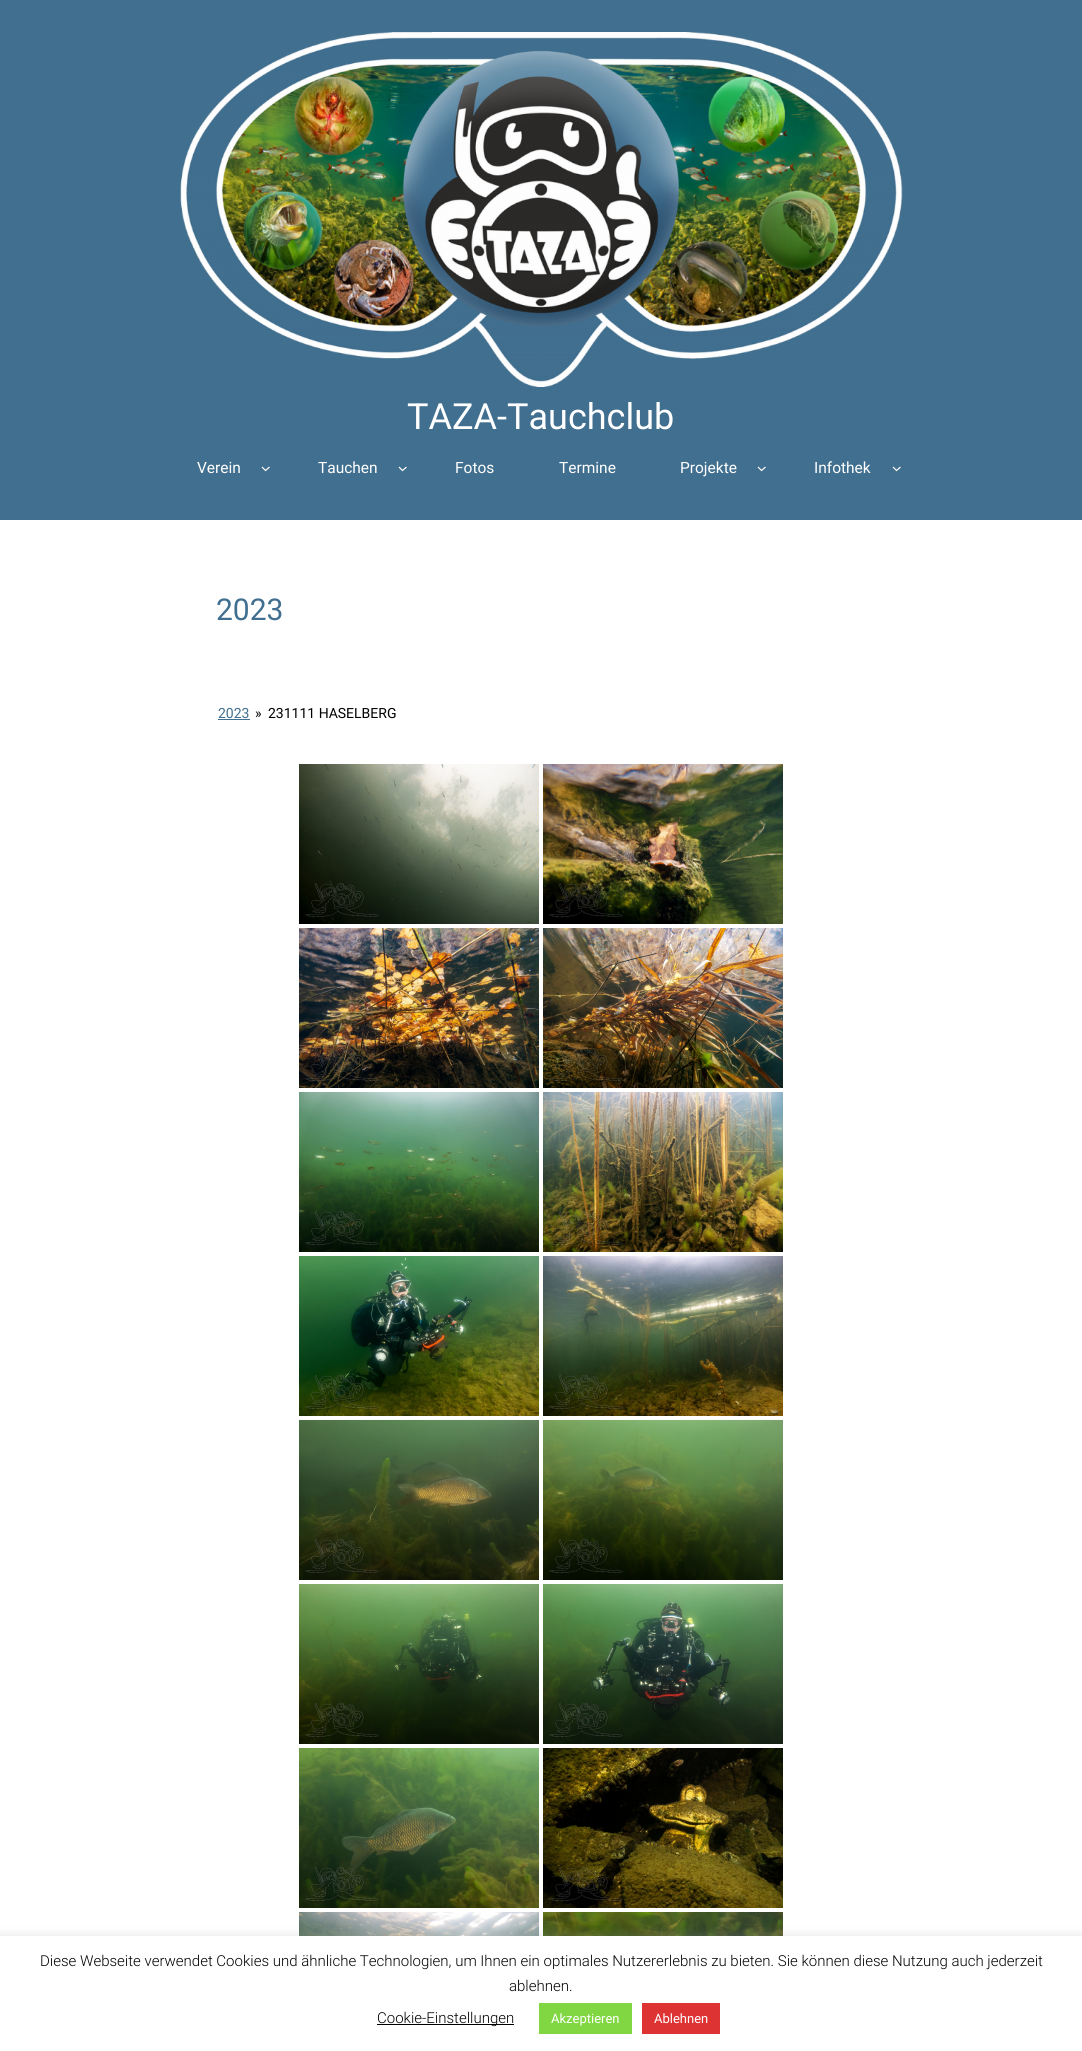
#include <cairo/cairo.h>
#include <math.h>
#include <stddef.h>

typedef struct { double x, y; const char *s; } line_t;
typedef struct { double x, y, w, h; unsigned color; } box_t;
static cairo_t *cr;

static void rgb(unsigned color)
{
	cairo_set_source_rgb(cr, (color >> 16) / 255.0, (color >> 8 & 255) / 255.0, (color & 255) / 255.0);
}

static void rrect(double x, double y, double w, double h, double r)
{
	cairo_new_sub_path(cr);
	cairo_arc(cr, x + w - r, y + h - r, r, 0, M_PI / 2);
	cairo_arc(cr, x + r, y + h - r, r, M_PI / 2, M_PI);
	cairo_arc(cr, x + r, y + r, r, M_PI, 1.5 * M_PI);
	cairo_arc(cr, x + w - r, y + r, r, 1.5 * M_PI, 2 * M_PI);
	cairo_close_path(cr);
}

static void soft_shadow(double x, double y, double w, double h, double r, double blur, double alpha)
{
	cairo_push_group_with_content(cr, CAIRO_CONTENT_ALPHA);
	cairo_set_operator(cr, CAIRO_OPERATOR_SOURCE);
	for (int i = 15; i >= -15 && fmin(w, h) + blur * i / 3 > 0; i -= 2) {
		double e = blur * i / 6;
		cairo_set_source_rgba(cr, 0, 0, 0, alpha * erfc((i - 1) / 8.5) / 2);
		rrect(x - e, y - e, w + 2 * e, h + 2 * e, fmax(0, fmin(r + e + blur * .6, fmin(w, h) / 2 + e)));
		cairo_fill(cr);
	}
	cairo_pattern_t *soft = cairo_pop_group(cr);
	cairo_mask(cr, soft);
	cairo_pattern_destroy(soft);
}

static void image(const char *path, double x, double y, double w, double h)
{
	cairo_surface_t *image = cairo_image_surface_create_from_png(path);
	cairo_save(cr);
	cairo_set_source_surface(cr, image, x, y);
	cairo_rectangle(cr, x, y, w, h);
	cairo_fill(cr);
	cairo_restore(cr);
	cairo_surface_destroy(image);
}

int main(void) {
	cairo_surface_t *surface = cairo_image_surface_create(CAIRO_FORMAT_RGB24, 1082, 2051);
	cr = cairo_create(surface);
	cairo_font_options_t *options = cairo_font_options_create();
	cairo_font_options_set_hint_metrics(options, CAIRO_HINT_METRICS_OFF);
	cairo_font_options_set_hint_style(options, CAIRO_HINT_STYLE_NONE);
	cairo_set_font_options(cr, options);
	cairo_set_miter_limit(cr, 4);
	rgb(0xffffff);
	cairo_paint(cr);
	rgb(0x416f8f);
	cairo_rectangle(cr, 0, 0, 1082, 520);
	cairo_fill(cr);
	image("img/1.png", 180, 32, 723, 355);
	cairo_new_path(cr);
	cairo_move_to(cr, 262, 467);
	cairo_line_to(cr, 265.5, 470.5);
	cairo_line_to(cr, 269.5, 467);
	rgb(0xffffff);
	cairo_set_line_width(cr, 1.2);
	cairo_stroke(cr);
	cairo_new_path(cr);
	cairo_move_to(cr, 399, 467);
	cairo_line_to(cr, 402.5, 470.5);
	cairo_line_to(cr, 406.5, 467);
	cairo_stroke(cr);
	cairo_new_path(cr);
	cairo_move_to(cr, 758, 467);
	cairo_line_to(cr, 761.5, 470.5);
	cairo_line_to(cr, 765.5, 467);
	cairo_stroke(cr);
	cairo_new_path(cr);
	cairo_move_to(cr, 893, 467);
	cairo_line_to(cr, 896.5, 470.5);
	cairo_line_to(cr, 900.5, 467);
	cairo_stroke(cr);
	rgb(0x416f8f);
	cairo_rectangle(cr, 218, 719, 32, 1);
	cairo_fill(cr);
	image("img/2.png", 299, 764, 240, 160);
	image("img/3.png", 543, 764, 240, 160);
	image("img/4.png", 299, 928, 240, 160);
	image("img/5.png", 543, 928, 240, 160);
	image("img/6.png", 299, 1092, 240, 160);
	image("img/7.png", 543, 1092, 240, 160);
	image("img/8.png", 299, 1256, 240, 160);
	image("img/9.png", 543, 1256, 240, 160);
	image("img/10.png", 299, 1420, 240, 160);
	image("img/11.png", 543, 1420, 240, 160);
	image("img/12.png", 299, 1584, 240, 160);
	image("img/13.png", 543, 1584, 240, 160);
	image("img/14.png", 299, 1748, 240, 160);
	image("img/15.png", 543, 1748, 240, 160);
	image("img/16.png", 299, 1912, 240, 24);
	image("img/17.png", 543, 1912, 240, 24);
	rgb(0xacabab);
	soft_shadow(0, 1935, 1082, 115, 0, 5, 0.3);
	{
		static const box_t items[] = {
			{0, 1936, 1082, 115, 0xffffff},
			{377, 2024, 137, 1, 0x000000},
			{539, 2003, 93, 31, 0x81d742},
			{642, 2003, 78, 31, 0xdd3333},
		};
		for (size_t i = 0; i < sizeof items / sizeof *items; i++) {
			rgb(items[i].color);
			cairo_rectangle(cr, items[i].x, items[i].y, items[i].w, items[i].h);
			cairo_fill(cr);
		}
	}
	cairo_select_font_face(cr, "Roboto", CAIRO_FONT_SLANT_NORMAL, CAIRO_FONT_WEIGHT_NORMAL);
	cairo_set_font_size(cr, 36);
	rgb(0xffffff);
	cairo_move_to(cr, 407, 429);
	cairo_show_text(cr, "TAZA-Tauchclub");
	cairo_set_font_size(cr, 15.5);
	{
		static const line_t items[] = {
			{197, 473, "Verein"},
			{318, 473, "Tauchen"},
			{455, 473, "Fotos"},
			{559, 473, "Termine"},
			{680, 473, "Projekte"},
			{814, 473, "Infothek"},
		};
		for (size_t i = 0; i < sizeof items / sizeof *items; i++) {
			cairo_move_to(cr, items[i].x, items[i].y);
			cairo_show_text(cr, items[i].s);
		}
	}
	cairo_set_font_size(cr, 30);
	rgb(0x416f8f);
	cairo_move_to(cr, 216, 620);
	cairo_show_text(cr, "2023");
	cairo_set_font_size(cr, 14);
	cairo_move_to(cr, 218, 718);
	cairo_show_text(cr, "2023");
	rgb(0x000000);
	cairo_move_to(cr, 255, 718);
	cairo_show_text(cr, "»");
	cairo_move_to(cr, 268, 718);
	cairo_show_text(cr, "231111 HASELBERG");
	cairo_select_font_face(cr, "Roboto Light", CAIRO_FONT_SLANT_NORMAL, CAIRO_FONT_WEIGHT_NORMAL);
	cairo_set_font_size(cr, 15);
	{
		static const line_t items[] = {
			{40, 1966, "Diese Webseite verwendet Cookies und ähnliche Technologien, um Ihnen ein optimales Nutzererlebnis zu bieten. Sie können diese Nutzung auch jederzeit"},
			{509, 1991, "ablehnen."},
			{377, 2023, "Cookie-Einstellungen"},
		};
		for (size_t i = 0; i < sizeof items / sizeof *items; i++) {
			cairo_move_to(cr, items[i].x, items[i].y);
			cairo_show_text(cr, items[i].s);
		}
	}
	cairo_select_font_face(cr, "Roboto", CAIRO_FONT_SLANT_NORMAL, CAIRO_FONT_WEIGHT_NORMAL);
	cairo_set_font_size(cr, 13);
	rgb(0xffffff);
	cairo_move_to(cr, 551, 2023);
	cairo_show_text(cr, "Akzeptieren");
	cairo_move_to(cr, 654, 2023);
	cairo_show_text(cr, "Ablehnen");
	cairo_surface_write_to_png(surface, "page.png");
	cairo_font_options_destroy(options);
	cairo_destroy(cr);
	cairo_surface_destroy(surface);
	return 0;
}
